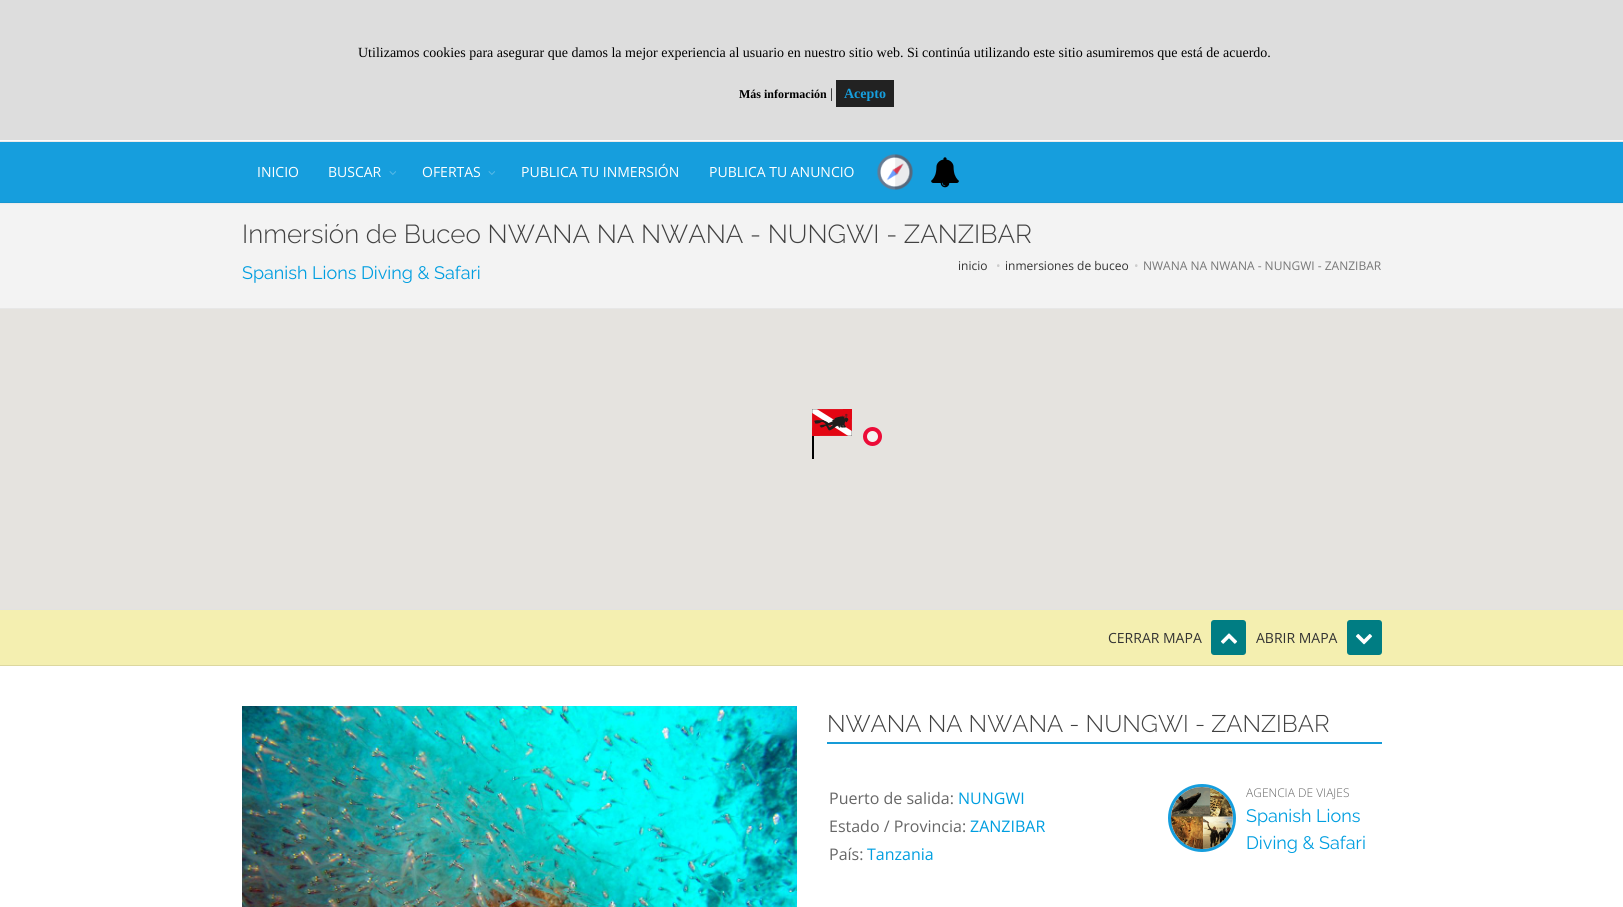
#include <cairo/cairo.h>
#include <math.h>
#include <stddef.h>

typedef struct { double x, y; const char *s; } line_t;
typedef struct { double x, y, w, h; unsigned color; } box_t;
static cairo_t *cr;

static void rgb(unsigned color)
{
	cairo_set_source_rgb(cr, (color >> 16) / 255.0, (color >> 8 & 255) / 255.0, (color & 255) / 255.0);
}

static void rrect(double x, double y, double w, double h, double r)
{
	cairo_new_sub_path(cr);
	cairo_arc(cr, x + w - r, y + h - r, r, 0, M_PI / 2);
	cairo_arc(cr, x + r, y + h - r, r, M_PI / 2, M_PI);
	cairo_arc(cr, x + r, y + r, r, M_PI, 1.5 * M_PI);
	cairo_arc(cr, x + w - r, y + r, r, 1.5 * M_PI, 2 * M_PI);
	cairo_close_path(cr);
}

static void soft_shadow(double x, double y, double w, double h, double r, double blur, double alpha)
{
	cairo_push_group_with_content(cr, CAIRO_CONTENT_ALPHA);
	cairo_set_operator(cr, CAIRO_OPERATOR_SOURCE);
	for (int i = 15; i >= -15 && fmin(w, h) + blur * i / 3 > 0; i -= 2) {
		double e = blur * i / 6;
		cairo_set_source_rgba(cr, 0, 0, 0, alpha * erfc((i - 1) / 8.5) / 2);
		rrect(x - e, y - e, w + 2 * e, h + 2 * e, fmax(0, fmin(r + e + blur * .6, fmin(w, h) / 2 + e)));
		cairo_fill(cr);
	}
	cairo_pattern_t *soft = cairo_pop_group(cr);
	cairo_mask(cr, soft);
	cairo_pattern_destroy(soft);
}

static void image(const char *path, double x, double y, double w, double h)
{
	cairo_surface_t *image = cairo_image_surface_create_from_png(path);
	cairo_save(cr);
	cairo_set_source_surface(cr, image, x, y);
	cairo_rectangle(cr, x, y, w, h);
	cairo_fill(cr);
	cairo_restore(cr);
	cairo_surface_destroy(image);
}

int main(void) {
	cairo_surface_t *surface = cairo_image_surface_create(CAIRO_FORMAT_RGB24, 1623, 907);
	cr = cairo_create(surface);
	cairo_font_options_t *options = cairo_font_options_create();
	cairo_font_options_set_hint_metrics(options, CAIRO_HINT_METRICS_OFF);
	cairo_font_options_set_hint_style(options, CAIRO_HINT_STYLE_NONE);
	cairo_set_font_options(cr, options);
	cairo_set_miter_limit(cr, 4);
	rgb(0xffffff);
	cairo_paint(cr);
	rgb(0xf2f2f2);
	cairo_rectangle(cr, 0, 141, 1623, 1);
	cairo_fill(cr);
	rgb(0xf3f3f3);
	cairo_rectangle(cr, 0, 203, 1623, 105);
	cairo_fill(cr);
	rgb(0x000000);
	soft_shadow(0, 142, 1623, 61, 0, 1, 0.1);
	{
		static const box_t items[] = {
			{0, 0, 1623, 140, 0xdddddd},
			{836, 80, 58, 27, 0x222222},
			{0, 142, 1623, 60, 0x169edd},
			{0, 202, 1623, 1, 0x1596d2},
		};
		for (size_t i = 0; i < sizeof items / sizeof *items; i++) {
			rgb(items[i].color);
			cairo_rectangle(cr, items[i].x, items[i].y, items[i].w, items[i].h);
			cairo_fill(cr);
		}
	}
	image("img/1.png", 389, 171, 7, 4);
	image("img/1.png", 488, 171, 7, 4);
	image("img/2.png", 877, 154, 36, 36);
	image("img/3.png", 931, 157, 28, 31);
	{
		static const box_t items[] = {
			{0, 308, 1623, 1, 0xe7e7e7},
			{0, 609, 1623, 1, 0xe2e2e2},
			{0, 309, 1623, 300, 0xe5e3df},
		};
		for (size_t i = 0; i < sizeof items / sizeof *items; i++) {
			rgb(items[i].color);
			cairo_rectangle(cr, items[i].x, items[i].y, items[i].w, items[i].h);
			cairo_fill(cr);
		}
	}
	image("img/4.png", 812, 409, 40, 50);
	image("img/5.png", 863, 427, 19, 19);
	rgb(0xf4efb0);
	cairo_rectangle(cr, 0, 610, 1623, 55);
	cairo_fill(cr);
	rgb(0xdcd79e);
	cairo_rectangle(cr, 0, 665, 1623, 1);
	cairo_fill(cr);
	rgb(0x007d83);
	rrect(1211, 620, 35, 35, 3);
	cairo_fill(cr);
	image("img/6.png", 1220, 633, 18, 11);
	rrect(1347, 620, 35, 35, 3);
	cairo_fill(cr);
	image("img/7.png", 1355, 634, 18, 11);
	image("img/8.png", 242, 706, 555, 201);
	rgb(0x179bd7);
	cairo_rectangle(cr, 827, 742, 555, 2);
	cairo_fill(cr);
	cairo_arc(cr, 1202, 818, 32.5, 0, 2 * M_PI);
	rgb(0x169edd);
	cairo_set_line_width(cr, 3);
	cairo_stroke(cr);
	image("img/9.png", 1171, 787, 62, 62);
	cairo_select_font_face(cr, "Liberation Serif", CAIRO_FONT_SLANT_NORMAL, CAIRO_FONT_WEIGHT_NORMAL);
	cairo_set_font_size(cr, 14);
	rgb(0x000000);
	cairo_move_to(cr, 358, 57);
	cairo_show_text(cr, "Utilizamos cookies para asegurar que damos la mejor experiencia al usuario en nuestro sitio web. Si continúa utilizando este sitio asumiremos que está de acuerdo.");
	cairo_select_font_face(cr, "Liberation Serif", CAIRO_FONT_SLANT_NORMAL, CAIRO_FONT_WEIGHT_BOLD);
	cairo_set_font_size(cr, 12);
	cairo_move_to(cr, 739, 98);
	cairo_show_text(cr, "Más información");
	cairo_select_font_face(cr, "Liberation Serif", CAIRO_FONT_SLANT_NORMAL, CAIRO_FONT_WEIGHT_NORMAL);
	cairo_set_font_size(cr, 14);
	cairo_move_to(cr, 830, 98);
	cairo_show_text(cr, "|");
	cairo_select_font_face(cr, "Liberation Serif", CAIRO_FONT_SLANT_NORMAL, CAIRO_FONT_WEIGHT_BOLD);
	rgb(0x169edd);
	cairo_move_to(cr, 844, 98);
	cairo_show_text(cr, "Acepto");
	cairo_select_font_face(cr, "Open Sans", CAIRO_FONT_SLANT_NORMAL, CAIRO_FONT_WEIGHT_NORMAL);
	rgb(0xffffff);
	{
		static const line_t items[] = {
			{257, 177, "INICIO"},
			{328, 177, "BUSCAR"},
			{422, 177, "OFERTAS"},
			{521, 177, "PUBLICA TU INMERSIÓN"},
			{709, 177, "PUBLICA TU ANUNCIO"},
		};
		for (size_t i = 0; i < sizeof items / sizeof *items; i++) {
			cairo_move_to(cr, items[i].x, items[i].y);
			cairo_show_text(cr, items[i].s);
		}
	}
	cairo_select_font_face(cr, "Raleway Light", CAIRO_FONT_SLANT_NORMAL, CAIRO_FONT_WEIGHT_NORMAL);
	cairo_set_font_size(cr, 26);
	rgb(0x414141);
	cairo_move_to(cr, 242, 243);
	cairo_show_text(cr, "Inmersión de Buceo NWANA NA NWANA - NUNGWI - ZANZIBAR");
	cairo_select_font_face(cr, "Raleway", CAIRO_FONT_SLANT_NORMAL, CAIRO_FONT_WEIGHT_NORMAL);
	cairo_set_font_size(cr, 18);
	rgb(0x009ee0);
	cairo_move_to(cr, 242, 279);
	cairo_show_text(cr, "Spanish Lions Diving & Safari");
	cairo_select_font_face(cr, "Open Sans", CAIRO_FONT_SLANT_NORMAL, CAIRO_FONT_WEIGHT_NORMAL);
	cairo_set_font_size(cr, 12);
	rgb(0x333333);
	cairo_move_to(cr, 958, 270);
	cairo_show_text(cr, "inicio");
	rgb(0xcccccc);
	cairo_move_to(cr, 996, 270);
	cairo_show_text(cr, "•");
	rgb(0x333333);
	cairo_move_to(cr, 1005, 270);
	cairo_show_text(cr, "inmersiones de buceo");
	rgb(0xcccccc);
	cairo_move_to(cr, 1134, 270);
	cairo_show_text(cr, "•");
	rgb(0x777777);
	cairo_move_to(cr, 1143, 270);
	cairo_show_text(cr, "NWANA NA NWANA - NUNGWI - ZANZIBAR");
	cairo_set_font_size(cr, 14);
	rgb(0x333333);
	cairo_move_to(cr, 1108, 643);
	cairo_show_text(cr, "CERRAR MAPA");
	cairo_move_to(cr, 1256, 643);
	cairo_show_text(cr, "ABRIR MAPA");
	cairo_select_font_face(cr, "Raleway Light", CAIRO_FONT_SLANT_NORMAL, CAIRO_FONT_WEIGHT_NORMAL);
	cairo_set_font_size(cr, 24);
	rgb(0x414141);
	cairo_move_to(cr, 827, 732);
	cairo_show_text(cr, "NWANA NA NWANA - NUNGWI - ZANZIBAR");
	cairo_select_font_face(cr, "Open Sans", CAIRO_FONT_SLANT_NORMAL, CAIRO_FONT_WEIGHT_NORMAL);
	cairo_set_font_size(cr, 16);
	rgb(0x666666);
	cairo_move_to(cr, 829, 804);
	cairo_show_text(cr, "Puerto de salida:");
	rgb(0x009ee0);
	cairo_move_to(cr, 958, 804);
	cairo_show_text(cr, "NUNGWI");
	rgb(0x666666);
	cairo_move_to(cr, 829, 832);
	cairo_show_text(cr, "Estado / Provincia:");
	rgb(0x009ee0);
	cairo_move_to(cr, 970, 832);
	cairo_show_text(cr, "ZANZIBAR");
	rgb(0x666666);
	cairo_move_to(cr, 829, 860);
	cairo_show_text(cr, "País:");
	rgb(0x009ee0);
	cairo_move_to(cr, 867, 860);
	cairo_show_text(cr, "Tanzania");
	cairo_select_font_face(cr, "Open Sans Light", CAIRO_FONT_SLANT_NORMAL, CAIRO_FONT_WEIGHT_NORMAL);
	cairo_set_font_size(cr, 12);
	rgb(0x666666);
	cairo_move_to(cr, 1246, 797);
	cairo_show_text(cr, "AGENCIA DE VIAJES");
	cairo_select_font_face(cr, "Raleway", CAIRO_FONT_SLANT_NORMAL, CAIRO_FONT_WEIGHT_NORMAL);
	cairo_set_font_size(cr, 18);
	rgb(0x009ee0);
	cairo_move_to(cr, 1246, 822);
	cairo_show_text(cr, "Spanish Lions");
	cairo_move_to(cr, 1246, 849);
	cairo_show_text(cr, "Diving & Safari");
	cairo_surface_write_to_png(surface, "page.png");
	cairo_font_options_destroy(options);
	cairo_destroy(cr);
	cairo_surface_destroy(surface);
	return 0;
}
